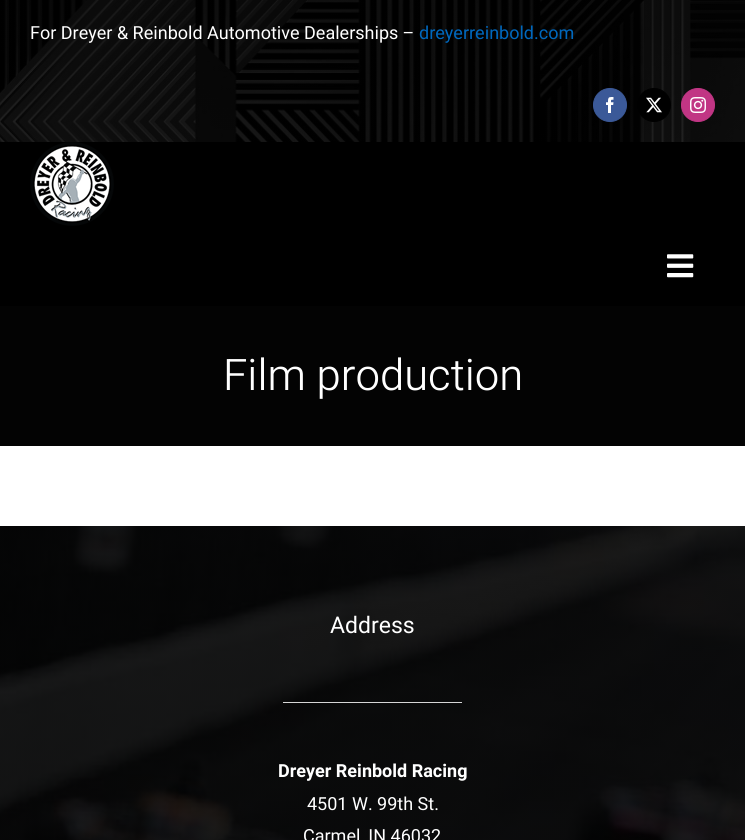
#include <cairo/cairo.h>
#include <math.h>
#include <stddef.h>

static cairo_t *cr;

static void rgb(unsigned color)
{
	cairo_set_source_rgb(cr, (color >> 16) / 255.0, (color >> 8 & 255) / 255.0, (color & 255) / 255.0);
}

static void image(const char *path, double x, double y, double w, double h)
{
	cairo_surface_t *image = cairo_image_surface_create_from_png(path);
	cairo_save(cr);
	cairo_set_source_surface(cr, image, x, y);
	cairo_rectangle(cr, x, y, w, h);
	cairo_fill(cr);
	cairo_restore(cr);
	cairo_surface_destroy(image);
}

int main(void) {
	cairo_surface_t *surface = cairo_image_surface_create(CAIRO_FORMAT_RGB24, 745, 840);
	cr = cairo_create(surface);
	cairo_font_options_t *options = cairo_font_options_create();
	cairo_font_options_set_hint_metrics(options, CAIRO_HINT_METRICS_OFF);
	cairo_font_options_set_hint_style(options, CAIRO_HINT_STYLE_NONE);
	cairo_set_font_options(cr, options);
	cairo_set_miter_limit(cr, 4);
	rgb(0xffffff);
	cairo_paint(cr);
	image("img/1.png", 0, 0, 745, 142);
	rgb(0x3b5998);
	cairo_arc(cr, 610, 105, 16.5, 0, 2 * M_PI);
	cairo_fill_preserve(cr);
	cairo_set_line_width(cr, 1);
	cairo_stroke(cr);
	image("img/2.png", 606, 97, 8, 16);
	rgb(0x000000);
	cairo_arc(cr, 654, 105, 16.5, 0, 2 * M_PI);
	cairo_fill_preserve(cr);
	cairo_stroke(cr);
	image("img/3.png", 646, 97, 16, 16);
	rgb(0xc13584);
	cairo_arc(cr, 698, 105, 16.5, 0, 2 * M_PI);
	cairo_fill_preserve(cr);
	cairo_stroke(cr);
	image("img/4.png", 690, 97, 16, 16);
	rgb(0x000000);
	cairo_rectangle(cr, 0, 142, 745, 164);
	cairo_fill(cr);
	image("img/5.png", 30, 142, 84, 84);
	image("img/6.png", 667, 254, 27, 24);
	rgb(0x030303);
	cairo_rectangle(cr, 0, 306, 745, 140);
	cairo_fill(cr);
	image("img/7.png", 0, 526, 745, 314);
	cairo_set_source_rgba(cr, 1, 1, 1, 0.83);
	cairo_rectangle(cr, 283, 702, 179, 1);
	cairo_fill(cr);
	cairo_select_font_face(cr, "Heebo", CAIRO_FONT_SLANT_NORMAL, CAIRO_FONT_WEIGHT_NORMAL);
	cairo_set_font_size(cr, 18);
	rgb(0xffffff);
	cairo_move_to(cr, 30, 39);
	cairo_show_text(cr, "For Dreyer & Reinbold Automotive Dealerships –");
	rgb(0x0068be);
	cairo_move_to(cr, 419, 39);
	cairo_show_text(cr, "dreyerreinbold.com");
	cairo_select_font_face(cr, "Heebo Light", CAIRO_FONT_SLANT_NORMAL, CAIRO_FONT_WEIGHT_NORMAL);
	cairo_set_font_size(cr, 43.5);
	rgb(0xffffff);
	cairo_move_to(cr, 223, 390);
	cairo_show_text(cr, "Film production");
	cairo_select_font_face(cr, "Heebo", CAIRO_FONT_SLANT_NORMAL, CAIRO_FONT_WEIGHT_NORMAL);
	cairo_set_font_size(cr, 23);
	cairo_move_to(cr, 330, 633);
	cairo_show_text(cr, "Address");
	cairo_select_font_face(cr, "Heebo", CAIRO_FONT_SLANT_NORMAL, CAIRO_FONT_WEIGHT_BOLD);
	cairo_set_font_size(cr, 18);
	cairo_move_to(cr, 278, 777);
	cairo_show_text(cr, "Dreyer Reinbold Racing");
	cairo_select_font_face(cr, "Heebo", CAIRO_FONT_SLANT_NORMAL, CAIRO_FONT_WEIGHT_NORMAL);
	cairo_move_to(cr, 307, 810);
	cairo_show_text(cr, "4501 W. 99th St.");
	cairo_move_to(cr, 303, 842);
	cairo_show_text(cr, "Carmel, IN 46032");
	cairo_surface_write_to_png(surface, "page.png");
	cairo_font_options_destroy(options);
	cairo_destroy(cr);
	cairo_surface_destroy(surface);
	return 0;
}
